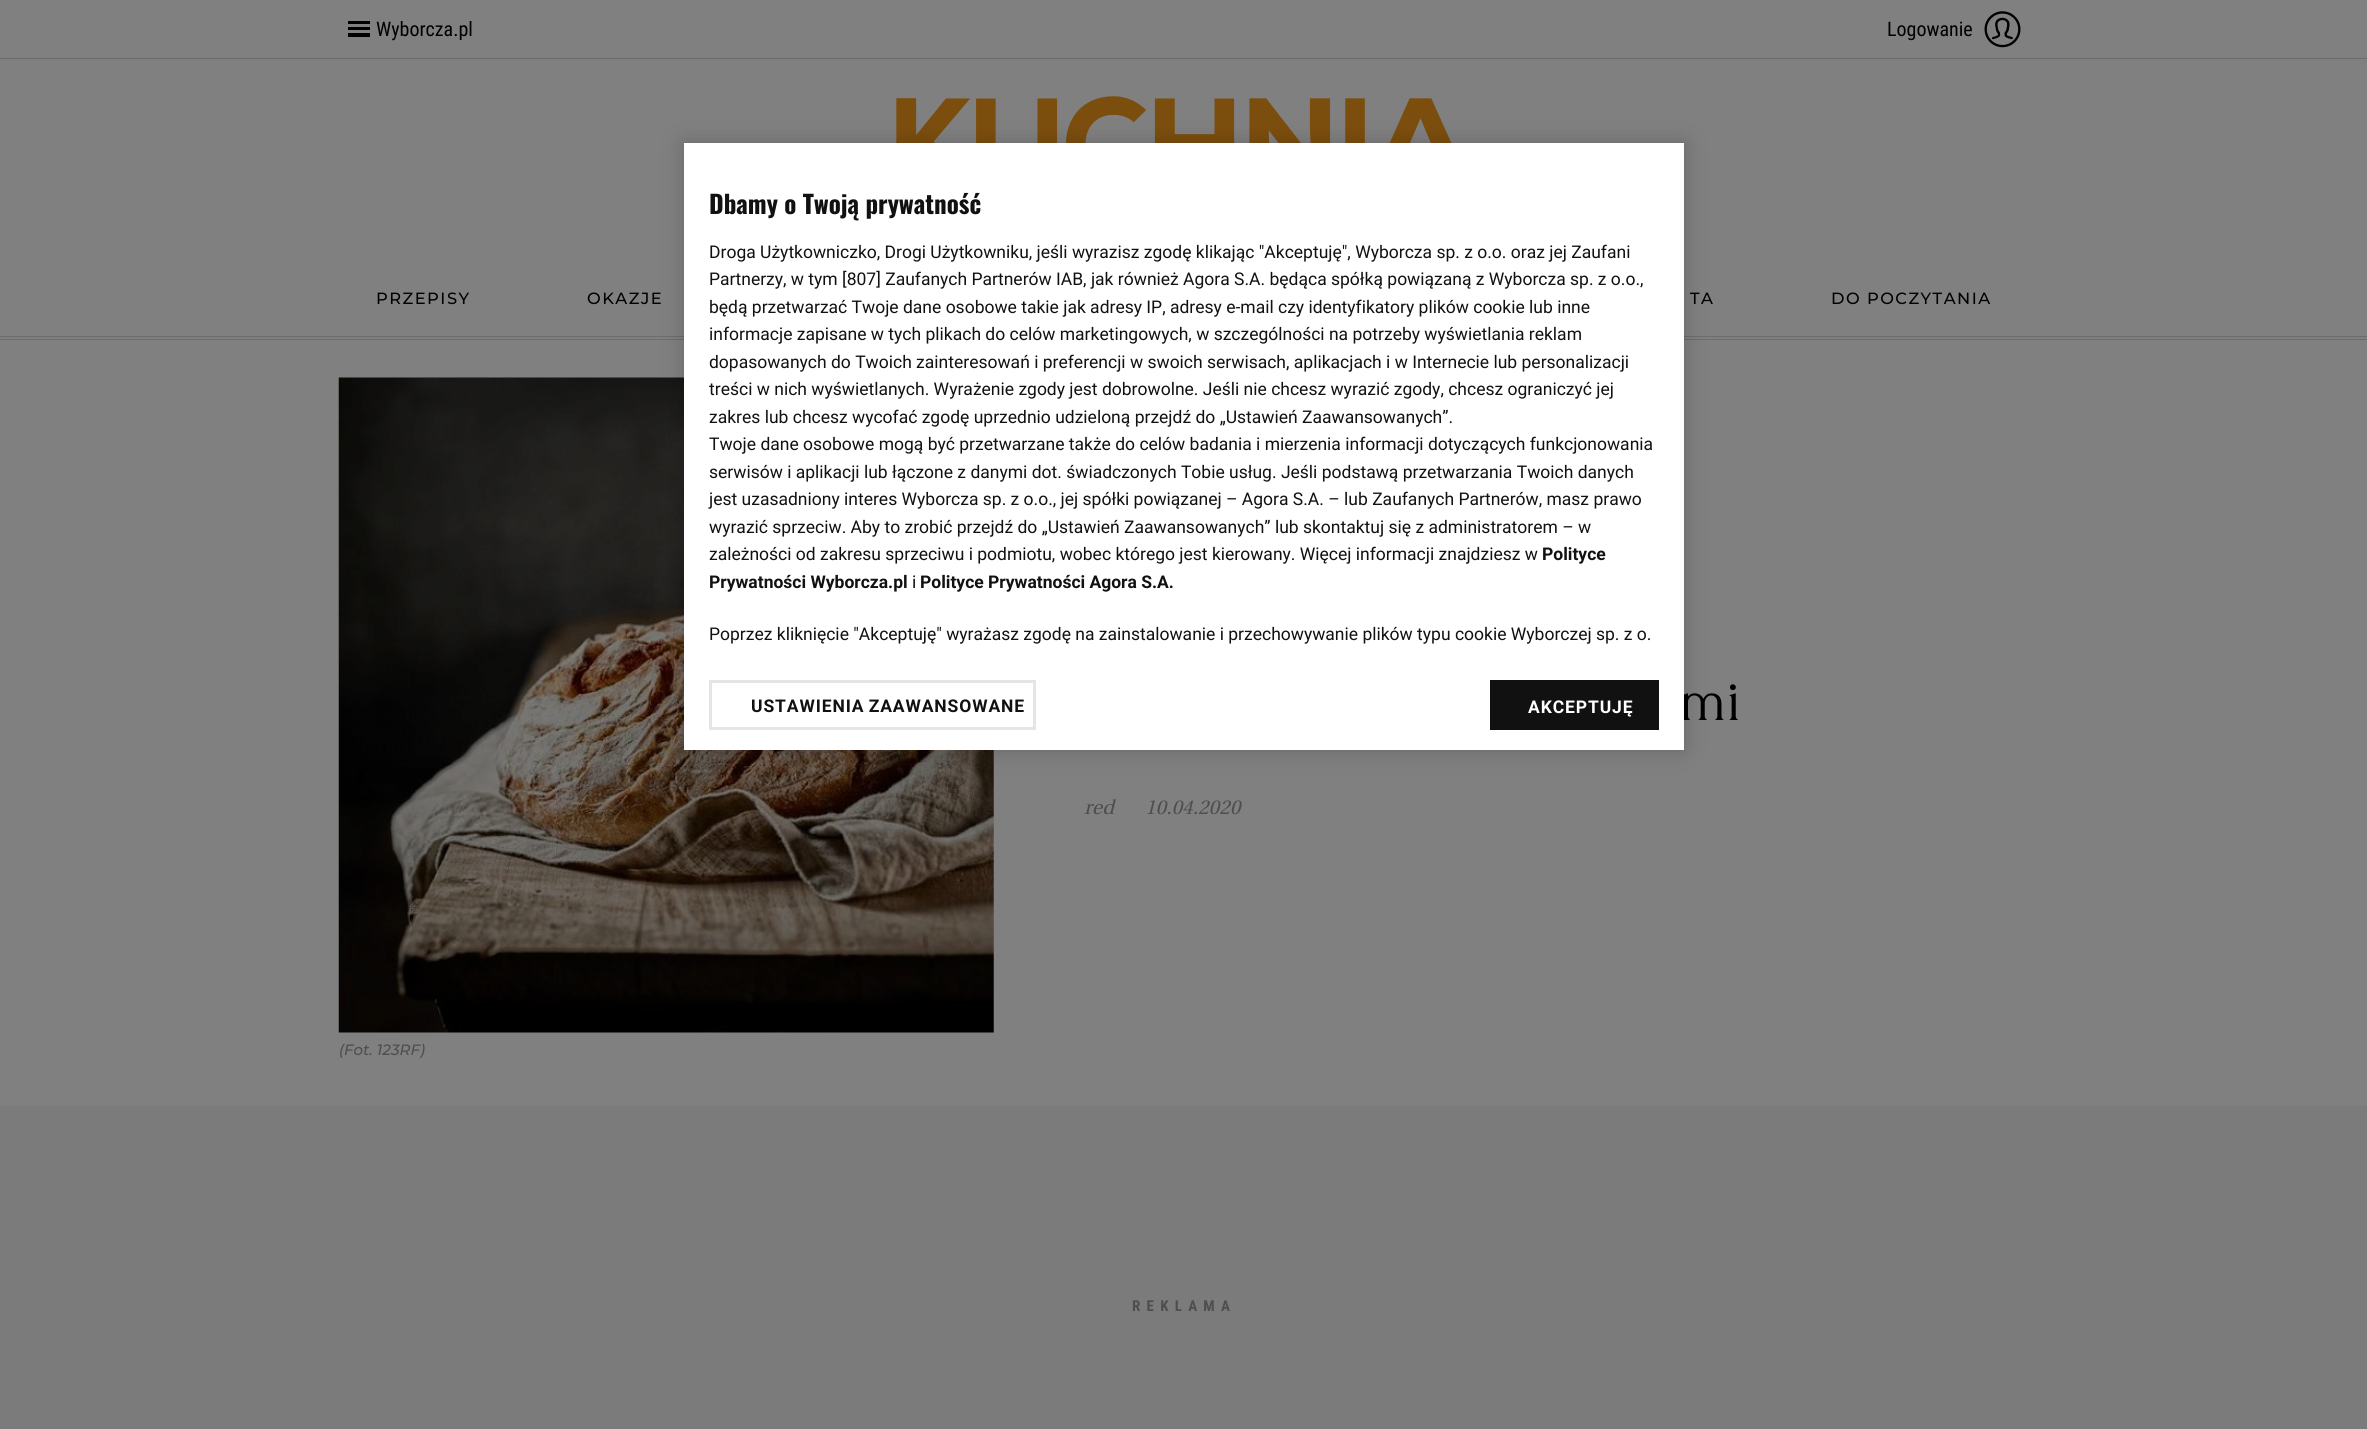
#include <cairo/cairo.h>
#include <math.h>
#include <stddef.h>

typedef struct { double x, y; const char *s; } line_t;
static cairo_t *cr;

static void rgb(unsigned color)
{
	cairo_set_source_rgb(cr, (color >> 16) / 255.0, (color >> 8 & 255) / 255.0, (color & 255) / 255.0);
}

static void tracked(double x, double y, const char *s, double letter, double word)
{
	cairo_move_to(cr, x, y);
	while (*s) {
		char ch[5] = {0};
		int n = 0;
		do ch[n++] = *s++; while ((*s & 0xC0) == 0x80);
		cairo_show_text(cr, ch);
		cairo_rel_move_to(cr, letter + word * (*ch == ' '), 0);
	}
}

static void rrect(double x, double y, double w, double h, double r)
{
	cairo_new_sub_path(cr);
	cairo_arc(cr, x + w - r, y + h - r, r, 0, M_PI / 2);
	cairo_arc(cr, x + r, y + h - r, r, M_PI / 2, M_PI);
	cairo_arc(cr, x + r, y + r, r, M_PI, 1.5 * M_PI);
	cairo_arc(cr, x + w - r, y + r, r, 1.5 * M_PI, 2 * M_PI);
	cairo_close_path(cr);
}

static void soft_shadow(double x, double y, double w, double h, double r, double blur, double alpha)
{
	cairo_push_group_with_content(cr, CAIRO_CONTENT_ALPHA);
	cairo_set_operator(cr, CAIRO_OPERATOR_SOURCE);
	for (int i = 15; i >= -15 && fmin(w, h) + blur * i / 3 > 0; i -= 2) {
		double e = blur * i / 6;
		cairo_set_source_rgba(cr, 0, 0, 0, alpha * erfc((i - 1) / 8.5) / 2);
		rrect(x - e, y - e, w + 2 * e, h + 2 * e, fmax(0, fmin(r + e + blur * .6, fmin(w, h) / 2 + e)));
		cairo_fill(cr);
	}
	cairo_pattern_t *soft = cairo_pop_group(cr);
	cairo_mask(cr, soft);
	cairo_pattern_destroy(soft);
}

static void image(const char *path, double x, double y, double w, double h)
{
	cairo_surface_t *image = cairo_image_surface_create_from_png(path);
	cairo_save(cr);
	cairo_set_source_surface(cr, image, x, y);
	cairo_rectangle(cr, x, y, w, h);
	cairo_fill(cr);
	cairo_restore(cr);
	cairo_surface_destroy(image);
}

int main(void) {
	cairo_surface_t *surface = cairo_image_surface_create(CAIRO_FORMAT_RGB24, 2367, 1429);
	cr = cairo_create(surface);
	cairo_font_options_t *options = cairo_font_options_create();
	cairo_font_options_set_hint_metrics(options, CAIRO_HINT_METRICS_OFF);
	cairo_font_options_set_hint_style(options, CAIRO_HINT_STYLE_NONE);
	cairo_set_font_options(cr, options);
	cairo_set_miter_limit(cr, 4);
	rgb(0x808080);
	cairo_paint(cr);
	rgb(0x6c6c6c);
	cairo_rectangle(cr, 0, 58, 2367, 1);
	cairo_fill(cr);
	image("img/1.png", 348, 21, 22, 16);
	image("img/2.png", 1984, 11, 37, 37);
	cairo_rectangle(cr, 0, 336, 2367, 1);
	cairo_fill(cr);
	cairo_rectangle(cr, 0, 339, 2367, 1);
	cairo_fill(cr);
	image("img/3.png", 896, 96, 556, 47);
	image("img/4.png", 338, 377, 656, 656);
	rgb(0x000000);
	soft_shadow(684, 143, 1000, 607, 0, 11, 0.2);
	rgb(0x7b7b7b);
	cairo_rectangle(cr, 0, 1106, 2367, 323);
	cairo_fill(cr);
	cairo_select_font_face(cr, "Roboto Condensed", CAIRO_FONT_SLANT_NORMAL, CAIRO_FONT_WEIGHT_NORMAL);
	cairo_set_font_size(cr, 20);
	rgb(0x000000);
	cairo_move_to(cr, 376, 36);
	cairo_show_text(cr, "Wyborcza.pl");
	cairo_move_to(cr, 1887, 36);
	cairo_show_text(cr, "Logowanie");
	cairo_select_font_face(cr, "Montserrat Medium", CAIRO_FONT_SLANT_NORMAL, CAIRO_FONT_WEIGHT_NORMAL);
	cairo_set_font_size(cr, 16.25);
	{
		static const line_t items[] = {
			{376, 304, "PRZEPISY"},
			{587, 304, "OKAZJE"},
			{1690, 304, "TA"},
			{1831, 304, "DO POCZYTANIA"},
		};
		for (size_t i = 0; i < sizeof items / sizeof *items; i++) {
			tracked(items[i].x, items[i].y, items[i].s, 1.5, 0);
		}
	}
	cairo_select_font_face(cr, "Forum", CAIRO_FONT_SLANT_NORMAL, CAIRO_FONT_WEIGHT_NORMAL);
	cairo_set_font_size(cr, 62);
	tracked(1679, 720, "mi", -1, 0);
	rgb(0xffffff);
	cairo_rectangle(cr, 684, 143, 1000, 607);
	cairo_fill(cr);
	rgb(0x111111);
	cairo_rectangle(cr, 1490, 680, 169, 50);
	cairo_fill(cr);
	cairo_select_font_face(cr, "Roboto", CAIRO_FONT_SLANT_NORMAL, CAIRO_FONT_WEIGHT_BOLD);
	cairo_set_font_size(cr, 17.5);
	rgb(0xffffff);
	tracked(1528, 713, "AKCEPTUJĘ", 0.9, 0);
	cairo_select_font_face(cr, "Roboto", CAIRO_FONT_SLANT_NORMAL, CAIRO_FONT_WEIGHT_NORMAL);
	rgb(0x111111);
	cairo_move_to(cr, 709, 640);
	cairo_show_text(cr, "Poprzez kliknięcie \"Akceptuję\" wyrażasz zgodę na zainstalowanie i przechowywanie plików typu cookie Wyborczej sp. z o.");
	cairo_select_font_face(cr, "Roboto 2", CAIRO_FONT_SLANT_NORMAL, CAIRO_FONT_WEIGHT_BOLD);
	cairo_move_to(cr, 920, 588);
	cairo_show_text(cr, "Polityce Prywatności Agora S.A.");
	cairo_select_font_face(cr, "Roboto", CAIRO_FONT_SLANT_NORMAL, CAIRO_FONT_WEIGHT_NORMAL);
	cairo_move_to(cr, 912, 588);
	cairo_show_text(cr, "i");
	cairo_select_font_face(cr, "Roboto 2", CAIRO_FONT_SLANT_NORMAL, CAIRO_FONT_WEIGHT_BOLD);
	cairo_move_to(cr, 709, 588);
	cairo_show_text(cr, "Prywatności Wyborcza.pl");
	cairo_move_to(cr, 1542, 560);
	cairo_show_text(cr, "Polityce");
	cairo_select_font_face(cr, "Roboto", CAIRO_FONT_SLANT_NORMAL, CAIRO_FONT_WEIGHT_NORMAL);
	{
		static const line_t items[] = {
			{709, 560, "zależności od zakresu sprzeciwu i podmiotu, wobec którego jest kierowany. Więcej informacji znajdziesz w"},
			{709, 533, "wyrazić sprzeciw. Aby to zrobić przejdź do „Ustawień Zaawansowanych” lub skontaktuj się z administratorem – w"},
			{709, 505, "jest uzasadniony interes Wyborcza sp. z o.o., jej spółki powiązanej – Agora S.A. – lub Zaufanych Partnerów, masz prawo"},
			{709, 478, "serwisów i aplikacji lub łączone z danymi dot. świadczonych Tobie usług. Jeśli podstawą przetwarzania Twoich danych"},
			{709, 450, "Twoje dane osobowe mogą być przetwarzane także do celów badania i mierzenia informacji dotyczących funkcjonowania"},
			{709, 423, "zakres lub chcesz wycofać zgodę uprzednio udzieloną przejdź do „Ustawień Zaawansowanych”."},
			{709, 395, "treści w nich wyświetlanych. Wyrażenie zgody jest dobrowolne. Jeśli nie chcesz wyrazić zgody, chcesz ograniczyć jej"},
			{709, 368, "dopasowanych do Twoich zainteresowań i preferencji w swoich serwisach, aplikacjach i w Internecie lub personalizacji"},
			{709, 340, "informacje zapisane w tych plikach do celów marketingowych, w szczególności na potrzeby wyświetlania reklam"},
			{709, 313, "będą przetwarzać Twoje dane osobowe takie jak adresy IP, adresy e-mail czy identyfikatory plików cookie lub inne"},
			{709, 285, "Partnerzy, w tym [807] Zaufanych Partnerów IAB, jak również Agora S.A. będąca spółką powiązaną z Wyborcza sp. z o.o.,"},
			{709, 258, "Droga Użytkowniczko, Drogi Użytkowniku, jeśli wyrazisz zgodę klikając \"Akceptuję\", Wyborcza sp. z o.o. oraz jej Zaufani"},
		};
		for (size_t i = 0; i < sizeof items / sizeof *items; i++) {
			cairo_move_to(cr, items[i].x, items[i].y);
			cairo_show_text(cr, items[i].s);
		}
	}
	cairo_select_font_face(cr, "Oswald", CAIRO_FONT_SLANT_NORMAL, CAIRO_FONT_WEIGHT_BOLD);
	cairo_set_font_size(cr, 25);
	cairo_move_to(cr, 709, 214);
	cairo_show_text(cr, "Dbamy o Twoją prywatność");
	cairo_rectangle(cr, 710.5, 681.5, 324, 47);
	rgb(0xe5e5e5);
	cairo_set_line_width(cr, 3);
	cairo_stroke(cr);
	cairo_select_font_face(cr, "Roboto", CAIRO_FONT_SLANT_NORMAL, CAIRO_FONT_WEIGHT_BOLD);
	cairo_set_font_size(cr, 17.5);
	rgb(0x111111);
	tracked(751, 712, "USTAWIENIA ZAAWANSOWANE", 0.9, -1);
	cairo_select_font_face(cr, "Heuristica", CAIRO_FONT_SLANT_ITALIC, CAIRO_FONT_WEIGHT_NORMAL);
	cairo_set_font_size(cr, 20);
	rgb(0x4e4e4e);
	cairo_move_to(cr, 1084, 814);
	cairo_show_text(cr, "red");
	cairo_move_to(cr, 1145, 814);
	cairo_show_text(cr, "10.04.2020");
	cairo_select_font_face(cr, "Montserrat Thin", CAIRO_FONT_SLANT_ITALIC, CAIRO_FONT_WEIGHT_NORMAL);
	cairo_set_font_size(cr, 15);
	cairo_move_to(cr, 339, 1055);
	cairo_show_text(cr, "(Fot. 123RF)");
	cairo_select_font_face(cr, "Roboto Condensed", CAIRO_FONT_SLANT_NORMAL, CAIRO_FONT_WEIGHT_BOLD);
	tracked(1132, 1311, "REKLAMA", 6.25, 0);
	cairo_surface_write_to_png(surface, "page.png");
	cairo_font_options_destroy(options);
	cairo_destroy(cr);
	cairo_surface_destroy(surface);
	return 0;
}
